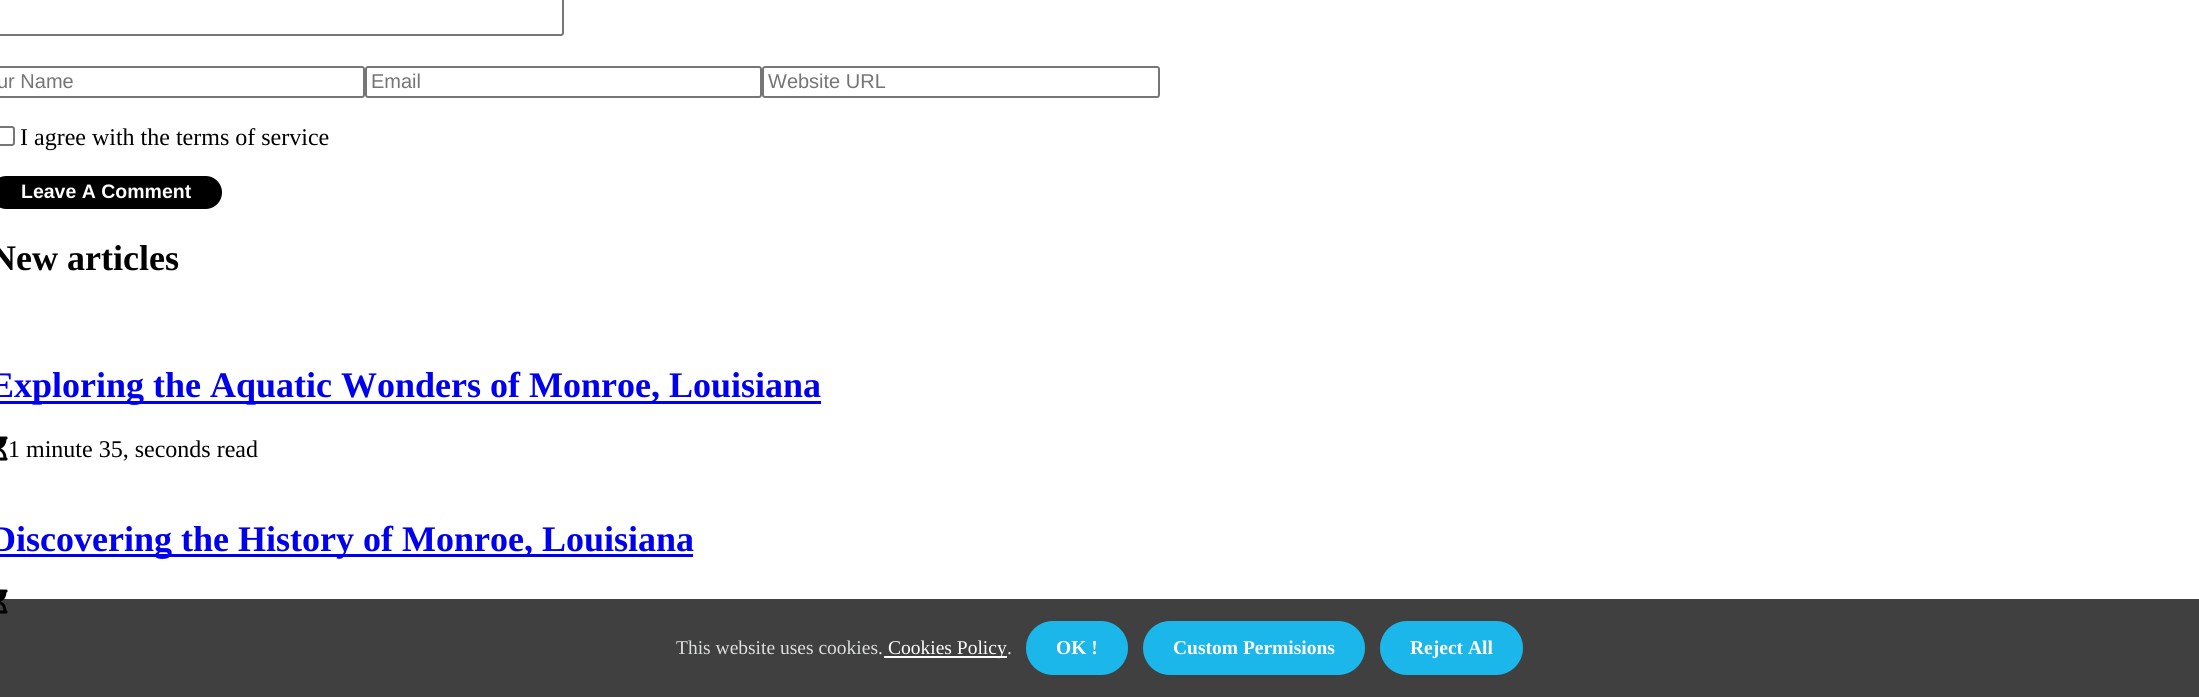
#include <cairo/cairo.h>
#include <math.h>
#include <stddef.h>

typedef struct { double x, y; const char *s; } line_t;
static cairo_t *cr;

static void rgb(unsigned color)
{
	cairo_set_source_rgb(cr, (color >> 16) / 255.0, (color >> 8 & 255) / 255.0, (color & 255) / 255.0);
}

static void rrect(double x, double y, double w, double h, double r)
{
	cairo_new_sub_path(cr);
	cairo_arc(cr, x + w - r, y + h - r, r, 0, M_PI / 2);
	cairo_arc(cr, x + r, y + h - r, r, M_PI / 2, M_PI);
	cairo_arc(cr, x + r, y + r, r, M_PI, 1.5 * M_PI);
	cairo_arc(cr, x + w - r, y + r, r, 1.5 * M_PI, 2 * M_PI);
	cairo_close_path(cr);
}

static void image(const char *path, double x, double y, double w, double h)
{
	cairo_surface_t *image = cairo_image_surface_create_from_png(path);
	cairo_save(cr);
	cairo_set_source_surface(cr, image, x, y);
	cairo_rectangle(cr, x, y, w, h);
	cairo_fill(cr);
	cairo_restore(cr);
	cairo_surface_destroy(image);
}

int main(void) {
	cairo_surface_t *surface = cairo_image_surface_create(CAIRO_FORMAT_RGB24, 2199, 697);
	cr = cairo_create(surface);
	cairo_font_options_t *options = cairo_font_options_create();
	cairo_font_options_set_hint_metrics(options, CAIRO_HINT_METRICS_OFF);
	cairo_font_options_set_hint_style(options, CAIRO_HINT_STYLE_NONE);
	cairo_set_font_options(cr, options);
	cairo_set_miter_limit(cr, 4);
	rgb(0xffffff);
	cairo_paint(cr);
	rrect(-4, -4, 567, 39, 2);
	rgb(0x767676);
	cairo_stroke(cr);
	rrect(-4, 67, 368, 30, 2);
	cairo_stroke(cr);
	rrect(366, 67, 395, 30, 2);
	cairo_stroke(cr);
	rrect(763, 67, 396, 30, 2);
	cairo_stroke(cr);
	rrect(-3, 127, 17, 18, 2);
	cairo_stroke(cr);
	rgb(0x000000);
	rrect(-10, 176, 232, 33, 16.5);
	cairo_fill(cr);
	rgb(0x0000ee);
	cairo_rectangle(cr, 0, 401, 821, 3);
	cairo_fill(cr);
	image("img/1.png", 0, 436, 8, 25);
	cairo_rectangle(cr, 0, 554, 693, 3);
	cairo_fill(cr);
	image("img/1.png", 0, 589, 8, 25);
	cairo_set_source_rgba(cr, 0, 0, 0, 0.75);
	cairo_rectangle(cr, 0, 599, 2199, 98);
	cairo_fill(cr);
	rgb(0xffffff);
	cairo_rectangle(cr, 884, 656, 123, 2);
	cairo_fill(cr);
	rgb(0x1cb7ea);
	rrect(1026, 621, 102, 54, 27);
	cairo_fill(cr);
	rrect(1143, 621, 222, 54, 27);
	cairo_fill(cr);
	rrect(1380, 621, 143, 54, 27);
	cairo_fill(cr);
	cairo_select_font_face(cr, "Liberation Sans", CAIRO_FONT_SLANT_NORMAL, CAIRO_FONT_WEIGHT_NORMAL);
	cairo_set_font_size(cr, 20);
	rgb(0x757575);
	{
		static const line_t items[] = {
			{-3, 88, "ur Name"},
			{371, 88, "Email"},
			{768, 88, "Website URL"},
		};
		for (size_t i = 0; i < sizeof items / sizeof *items; i++) {
			cairo_move_to(cr, items[i].x, items[i].y);
			cairo_show_text(cr, items[i].s);
		}
	}
	cairo_select_font_face(cr, "Liberation Serif", CAIRO_FONT_SLANT_NORMAL, CAIRO_FONT_WEIGHT_NORMAL);
	cairo_set_font_size(cr, 24);
	rgb(0x000000);
	cairo_move_to(cr, 20, 145);
	cairo_show_text(cr, "I agree with the terms of service");
	cairo_select_font_face(cr, "Liberation Sans", CAIRO_FONT_SLANT_NORMAL, CAIRO_FONT_WEIGHT_BOLD);
	cairo_set_font_size(cr, 19.5);
	rgb(0xffffff);
	cairo_move_to(cr, 21, 198);
	cairo_show_text(cr, "Leave A Comment");
	cairo_select_font_face(cr, "Liberation Serif", CAIRO_FONT_SLANT_NORMAL, CAIRO_FONT_WEIGHT_BOLD);
	cairo_set_font_size(cr, 36);
	rgb(0x000000);
	cairo_move_to(cr, -10, 270);
	cairo_show_text(cr, "New articles");
	rgb(0x0000ee);
	cairo_move_to(cr, -10, 397);
	cairo_show_text(cr, "Exploring the Aquatic Wonders of Monroe, Louisiana");
	cairo_select_font_face(cr, "Liberation Serif", CAIRO_FONT_SLANT_NORMAL, CAIRO_FONT_WEIGHT_NORMAL);
	cairo_set_font_size(cr, 24);
	rgb(0x000000);
	cairo_move_to(cr, 8, 457);
	cairo_show_text(cr, "1 minute 35, seconds read");
	cairo_select_font_face(cr, "Liberation Serif", CAIRO_FONT_SLANT_NORMAL, CAIRO_FONT_WEIGHT_BOLD);
	cairo_set_font_size(cr, 36);
	rgb(0x0000ee);
	cairo_move_to(cr, -10, 551);
	cairo_show_text(cr, "Discovering the History of Monroe, Louisiana");
	cairo_select_font_face(cr, "Liberation Serif", CAIRO_FONT_SLANT_NORMAL, CAIRO_FONT_WEIGHT_NORMAL);
	cairo_set_font_size(cr, 19.5);
	rgb(0xdbe0df);
	cairo_move_to(cr, 676, 654);
	cairo_show_text(cr, "This website uses cookies.");
	rgb(0xffffff);
	cairo_move_to(cr, 888, 654);
	cairo_show_text(cr, "Cookies Policy");
	rgb(0xdbe0df);
	cairo_move_to(cr, 1007, 654);
	cairo_show_text(cr, ".");
	cairo_select_font_face(cr, "Liberation Serif", CAIRO_FONT_SLANT_NORMAL, CAIRO_FONT_WEIGHT_BOLD);
	rgb(0xffffff);
	{
		static const line_t items[] = {
			{1056, 654, "OK !"},
			{1173, 654, "Custom Permisions"},
			{1410, 654, "Reject All"},
		};
		for (size_t i = 0; i < sizeof items / sizeof *items; i++) {
			cairo_move_to(cr, items[i].x, items[i].y);
			cairo_show_text(cr, items[i].s);
		}
	}
	cairo_surface_write_to_png(surface, "page.png");
	cairo_font_options_destroy(options);
	cairo_destroy(cr);
	cairo_surface_destroy(surface);
	return 0;
}
